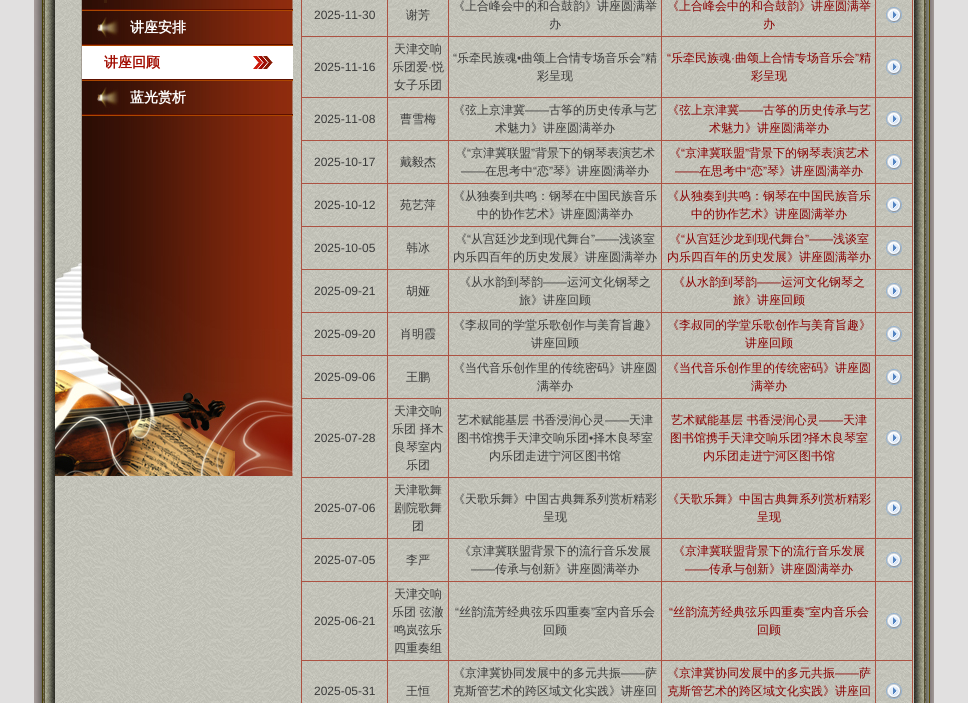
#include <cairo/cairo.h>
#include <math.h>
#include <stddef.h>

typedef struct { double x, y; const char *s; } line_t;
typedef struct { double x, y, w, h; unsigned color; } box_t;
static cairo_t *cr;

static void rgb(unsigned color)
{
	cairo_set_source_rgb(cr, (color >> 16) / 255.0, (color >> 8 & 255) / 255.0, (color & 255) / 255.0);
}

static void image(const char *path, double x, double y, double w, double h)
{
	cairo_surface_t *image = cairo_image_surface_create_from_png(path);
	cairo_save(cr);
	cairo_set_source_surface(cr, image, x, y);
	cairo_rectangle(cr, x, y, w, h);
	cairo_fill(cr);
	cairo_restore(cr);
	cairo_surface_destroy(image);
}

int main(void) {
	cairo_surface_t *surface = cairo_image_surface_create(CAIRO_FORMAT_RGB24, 968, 703);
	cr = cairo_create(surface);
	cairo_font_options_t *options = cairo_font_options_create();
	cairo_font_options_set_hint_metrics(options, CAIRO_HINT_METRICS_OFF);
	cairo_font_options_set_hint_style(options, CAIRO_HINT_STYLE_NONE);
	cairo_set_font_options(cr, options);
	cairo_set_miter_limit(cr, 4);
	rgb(0xe1e0e0);
	cairo_paint(cr);
	image("img/1.png", 34, 0, 900, 703);
	image("img/2.png", 81, 0, 212, 256);
	image("img/3.png", 55, 256, 238, 220);
	image("img/4.png", 82, 9, 211, 2);
	rgb(0x3f1e0b);
	cairo_rectangle(cr, 104, 0, 3, 3);
	cairo_fill(cr);
	image("img/4.png", 82, 44, 211, 2);
	image("img/5.png", 97, 17, 22, 21);
	image("img/4.png", 82, 79, 211, 2);
	rgb(0xffffff);
	cairo_rectangle(cr, 82, 46, 211, 33);
	cairo_fill(cr);
	image("img/6.png", 253, 56, 20, 13);
	image("img/4.png", 82, 114, 211, 2);
	image("img/5.png", 97, 87, 22, 21);
	{
		static const box_t items[] = {
			{912, 0, 1, 703, 0xac5242},
			{301, 0, 1, 703, 0xac5242},
			{875, 36, 38, 1, 0xac5242},
			{875, 97, 38, 1, 0xac5242},
			{875, 140, 38, 1, 0xac5242},
			{875, 183, 38, 1, 0xac5242},
			{875, 226, 38, 1, 0xac5242},
			{875, 269, 38, 1, 0xac5242},
			{875, 312, 38, 1, 0xac5242},
			{875, 355, 38, 1, 0xac5242},
			{875, 398, 38, 1, 0xac5242},
			{875, 477, 38, 1, 0xac5242},
			{875, 538, 38, 1, 0xac5242},
			{875, 581, 38, 1, 0xac5242},
			{875, 660, 38, 1, 0xac5242},
			{875, 660, 1, 43, 0xac5242},
			{661, 660, 215, 1, 0xac5242},
			{875, 581, 1, 80, 0xac5242},
			{661, 581, 215, 1, 0xac5242},
			{875, 538, 1, 44, 0xac5242},
			{661, 538, 215, 1, 0xac5242},
			{875, 477, 1, 62, 0xac5242},
			{661, 477, 215, 1, 0xac5242},
			{875, 398, 1, 80, 0xac5242},
			{661, 398, 215, 1, 0xac5242},
			{875, 355, 1, 44, 0xac5242},
			{661, 355, 215, 1, 0xac5242},
			{875, 312, 1, 44, 0xac5242},
			{661, 312, 215, 1, 0xac5242},
			{875, 269, 1, 44, 0xac5242},
			{661, 269, 215, 1, 0xac5242},
			{875, 226, 1, 44, 0xac5242},
			{661, 226, 215, 1, 0xac5242},
			{875, 183, 1, 44, 0xac5242},
			{661, 183, 215, 1, 0xac5242},
			{875, 140, 1, 44, 0xac5242},
			{661, 140, 215, 1, 0xac5242},
			{875, 97, 1, 44, 0xac5242},
			{661, 97, 215, 1, 0xac5242},
			{875, 36, 1, 62, 0xac5242},
			{661, 36, 215, 1, 0xac5242},
			{661, 660, 1, 43, 0xac5242},
			{448, 660, 214, 1, 0xac5242},
			{661, 581, 1, 80, 0xac5242},
			{448, 581, 214, 1, 0xac5242},
			{661, 538, 1, 44, 0xac5242},
			{448, 538, 214, 1, 0xac5242},
			{661, 477, 1, 62, 0xac5242},
			{448, 477, 214, 1, 0xac5242},
			{661, 398, 1, 80, 0xac5242},
			{448, 398, 214, 1, 0xac5242},
			{661, 355, 1, 44, 0xac5242},
			{448, 355, 214, 1, 0xac5242},
			{661, 312, 1, 44, 0xac5242},
			{448, 312, 214, 1, 0xac5242},
			{661, 269, 1, 44, 0xac5242},
			{448, 269, 214, 1, 0xac5242},
			{661, 226, 1, 44, 0xac5242},
			{448, 226, 214, 1, 0xac5242},
			{661, 183, 1, 44, 0xac5242},
			{448, 183, 214, 1, 0xac5242},
			{661, 140, 1, 44, 0xac5242},
			{448, 140, 214, 1, 0xac5242},
			{661, 97, 1, 44, 0xac5242},
			{448, 97, 214, 1, 0xac5242},
			{661, 36, 1, 62, 0xac5242},
			{448, 36, 214, 1, 0xac5242},
			{448, 660, 1, 43, 0xac5242},
			{387, 660, 62, 1, 0xac5242},
			{448, 581, 1, 80, 0xac5242},
			{387, 581, 62, 1, 0xac5242},
			{448, 538, 1, 44, 0xac5242},
			{387, 538, 62, 1, 0xac5242},
			{448, 477, 1, 62, 0xac5242},
			{387, 477, 62, 1, 0xac5242},
			{448, 398, 1, 80, 0xac5242},
			{387, 398, 62, 1, 0xac5242},
			{448, 355, 1, 44, 0xac5242},
			{387, 355, 62, 1, 0xac5242},
			{448, 312, 1, 44, 0xac5242},
			{387, 312, 62, 1, 0xac5242},
			{448, 269, 1, 44, 0xac5242},
			{387, 269, 62, 1, 0xac5242},
			{448, 226, 1, 44, 0xac5242},
			{387, 226, 62, 1, 0xac5242},
			{448, 183, 1, 44, 0xac5242},
			{387, 183, 62, 1, 0xac5242},
			{448, 140, 1, 44, 0xac5242},
			{387, 140, 62, 1, 0xac5242},
			{448, 97, 1, 44, 0xac5242},
			{387, 97, 62, 1, 0xac5242},
			{448, 36, 1, 62, 0xac5242},
			{387, 36, 62, 1, 0xac5242},
			{387, 660, 1, 43, 0xac5242},
			{301, 660, 87, 1, 0xac5242},
			{387, 581, 1, 80, 0xac5242},
			{301, 581, 87, 1, 0xac5242},
			{387, 538, 1, 44, 0xac5242},
			{301, 538, 87, 1, 0xac5242},
			{387, 477, 1, 62, 0xac5242},
			{301, 477, 87, 1, 0xac5242},
			{387, 398, 1, 80, 0xac5242},
			{301, 398, 87, 1, 0xac5242},
			{387, 355, 1, 44, 0xac5242},
			{301, 355, 87, 1, 0xac5242},
			{387, 312, 1, 44, 0xac5242},
			{301, 312, 87, 1, 0xac5242},
			{387, 269, 1, 44, 0xac5242},
			{301, 269, 87, 1, 0xac5242},
			{387, 226, 1, 44, 0xac5242},
			{301, 226, 87, 1, 0xac5242},
			{387, 183, 1, 44, 0xac5242},
			{301, 183, 87, 1, 0xac5242},
			{387, 140, 1, 44, 0xac5242},
			{301, 140, 87, 1, 0xac5242},
			{387, 97, 1, 44, 0xac5242},
			{301, 97, 87, 1, 0xac5242},
			{387, 36, 1, 62, 0xac5242},
			{301, 36, 87, 1, 0xac5242},
			{387, 0, 1, 37, 0xac5242},
			{448, 0, 1, 37, 0xac5242},
			{661, 0, 1, 37, 0xac5242},
			{875, 0, 1, 37, 0xac5242},
		};
		for (size_t i = 0; i < sizeof items / sizeof *items; i++) {
			rgb(items[i].color);
			cairo_rectangle(cr, items[i].x, items[i].y, items[i].w, items[i].h);
			cairo_fill(cr);
		}
	}
	image("img/7.png", 886, 7, 16, 16);
	image("img/8.png", 886, 59, 16, 16);
	image("img/9.png", 886, 111, 16, 16);
	image("img/10.png", 886, 154, 16, 16);
	image("img/11.png", 886, 197, 16, 16);
	image("img/12.png", 886, 240, 16, 16);
	image("img/13.png", 886, 283, 16, 16);
	image("img/14.png", 886, 326, 16, 16);
	image("img/8.png", 886, 369, 16, 16);
	image("img/15.png", 886, 430, 16, 16);
	image("img/13.png", 886, 500, 16, 16);
	image("img/16.png", 886, 552, 16, 16);
	image("img/17.png", 886, 613, 16, 16);
	image("img/18.png", 886, 683, 16, 16);
	cairo_select_font_face(cr, "WenQuanYi Zen Hei", CAIRO_FONT_SLANT_NORMAL, CAIRO_FONT_WEIGHT_BOLD);
	cairo_set_font_size(cr, 14);
	rgb(0xffffff);
	cairo_move_to(cr, 130, 32);
	cairo_show_text(cr, "讲座安排");
	rgb(0xa10c00);
	cairo_move_to(cr, 104, 67);
	cairo_show_text(cr, "讲座回顾");
	rgb(0xffffff);
	cairo_move_to(cr, 130, 102);
	cairo_show_text(cr, "蓝光赏析");
	cairo_select_font_face(cr, "Liberation Sans", CAIRO_FONT_SLANT_NORMAL, CAIRO_FONT_WEIGHT_NORMAL);
	cairo_set_font_size(cr, 12);
	rgb(0x3a3a3a);
	cairo_move_to(cr, 314, 19);
	cairo_show_text(cr, "2025-11-30");
	cairo_select_font_face(cr, "WenQuanYi Zen Hei Medium", CAIRO_FONT_SLANT_NORMAL, CAIRO_FONT_WEIGHT_NORMAL);
	{
		static const line_t items[] = {
			{406, 19, "谢芳"},
			{453, 10, "《上合峰会中的和合鼓韵》讲座圆满举"},
			{549, 28, "办"},
		};
		for (size_t i = 0; i < sizeof items / sizeof *items; i++) {
			cairo_move_to(cr, items[i].x, items[i].y);
			cairo_show_text(cr, items[i].s);
		}
	}
	rgb(0x890001);
	cairo_move_to(cr, 667, 10);
	cairo_show_text(cr, "《上合峰会中的和合鼓韵》讲座圆满举");
	cairo_move_to(cr, 763, 28);
	cairo_show_text(cr, "办");
	cairo_select_font_face(cr, "Liberation Sans", CAIRO_FONT_SLANT_NORMAL, CAIRO_FONT_WEIGHT_NORMAL);
	rgb(0x3a3a3a);
	cairo_move_to(cr, 314, 71);
	cairo_show_text(cr, "2025-11-16");
	cairo_select_font_face(cr, "WenQuanYi Zen Hei Medium", CAIRO_FONT_SLANT_NORMAL, CAIRO_FONT_WEIGHT_NORMAL);
	cairo_move_to(cr, 394, 53);
	cairo_show_text(cr, "天津交响");
	cairo_move_to(cr, 392, 71);
	cairo_show_text(cr, "乐团爱");
	cairo_select_font_face(cr, "Liberation Sans", CAIRO_FONT_SLANT_NORMAL, CAIRO_FONT_WEIGHT_NORMAL);
	cairo_move_to(cr, 428, 71);
	cairo_show_text(cr, "·");
	cairo_select_font_face(cr, "WenQuanYi Zen Hei Medium", CAIRO_FONT_SLANT_NORMAL, CAIRO_FONT_WEIGHT_NORMAL);
	cairo_move_to(cr, 432, 71);
	cairo_show_text(cr, "悦");
	cairo_move_to(cr, 394, 89);
	cairo_show_text(cr, "女子乐团");
	cairo_select_font_face(cr, "Liberation Sans", CAIRO_FONT_SLANT_NORMAL, CAIRO_FONT_WEIGHT_NORMAL);
	cairo_move_to(cr, 453, 62);
	cairo_show_text(cr, "“");
	cairo_select_font_face(cr, "WenQuanYi Zen Hei Medium", CAIRO_FONT_SLANT_NORMAL, CAIRO_FONT_WEIGHT_NORMAL);
	cairo_move_to(cr, 457, 62);
	cairo_show_text(cr, "乐牵民族魂");
	cairo_move_to(cr, 521, 62);
	cairo_show_text(cr, "曲颂上合情专场音乐会");
	cairo_select_font_face(cr, "Liberation Sans", CAIRO_FONT_SLANT_NORMAL, CAIRO_FONT_WEIGHT_NORMAL);
	cairo_move_to(cr, 641, 62);
	cairo_show_text(cr, "”");
	cairo_select_font_face(cr, "WenQuanYi Zen Hei Medium", CAIRO_FONT_SLANT_NORMAL, CAIRO_FONT_WEIGHT_NORMAL);
	cairo_move_to(cr, 645, 62);
	cairo_show_text(cr, "精");
	cairo_select_font_face(cr, "Liberation Sans", CAIRO_FONT_SLANT_NORMAL, CAIRO_FONT_WEIGHT_NORMAL);
	cairo_move_to(cr, 517, 62);
	cairo_show_text(cr, "•");
	cairo_select_font_face(cr, "WenQuanYi Zen Hei Medium", CAIRO_FONT_SLANT_NORMAL, CAIRO_FONT_WEIGHT_NORMAL);
	cairo_move_to(cr, 537, 80);
	cairo_show_text(cr, "彩呈现");
	cairo_select_font_face(cr, "Liberation Sans", CAIRO_FONT_SLANT_NORMAL, CAIRO_FONT_WEIGHT_NORMAL);
	rgb(0x890001);
	cairo_move_to(cr, 667, 62);
	cairo_show_text(cr, "“");
	cairo_select_font_face(cr, "WenQuanYi Zen Hei Medium", CAIRO_FONT_SLANT_NORMAL, CAIRO_FONT_WEIGHT_NORMAL);
	cairo_move_to(cr, 671, 62);
	cairo_show_text(cr, "乐牵民族魂");
	cairo_move_to(cr, 735, 62);
	cairo_show_text(cr, "曲颂上合情专场音乐会");
	cairo_select_font_face(cr, "Liberation Sans", CAIRO_FONT_SLANT_NORMAL, CAIRO_FONT_WEIGHT_NORMAL);
	cairo_move_to(cr, 855, 62);
	cairo_show_text(cr, "”");
	cairo_select_font_face(cr, "WenQuanYi Zen Hei Medium", CAIRO_FONT_SLANT_NORMAL, CAIRO_FONT_WEIGHT_NORMAL);
	cairo_move_to(cr, 859, 62);
	cairo_show_text(cr, "精");
	cairo_select_font_face(cr, "Liberation Sans", CAIRO_FONT_SLANT_NORMAL, CAIRO_FONT_WEIGHT_NORMAL);
	cairo_move_to(cr, 731, 62);
	cairo_show_text(cr, "·");
	cairo_select_font_face(cr, "WenQuanYi Zen Hei Medium", CAIRO_FONT_SLANT_NORMAL, CAIRO_FONT_WEIGHT_NORMAL);
	cairo_move_to(cr, 751, 80);
	cairo_show_text(cr, "彩呈现");
	cairo_select_font_face(cr, "Liberation Sans", CAIRO_FONT_SLANT_NORMAL, CAIRO_FONT_WEIGHT_NORMAL);
	rgb(0x3a3a3a);
	cairo_move_to(cr, 314, 123);
	cairo_show_text(cr, "2025-11-08");
	cairo_select_font_face(cr, "WenQuanYi Zen Hei Medium", CAIRO_FONT_SLANT_NORMAL, CAIRO_FONT_WEIGHT_NORMAL);
	cairo_move_to(cr, 400, 123);
	cairo_show_text(cr, "曹雪梅");
	cairo_move_to(cr, 453, 114);
	cairo_show_text(cr, "《弦上京津冀");
	cairo_select_font_face(cr, "Liberation Sans", CAIRO_FONT_SLANT_NORMAL, CAIRO_FONT_WEIGHT_NORMAL);
	cairo_move_to(cr, 525, 114);
	cairo_show_text(cr, "——");
	cairo_select_font_face(cr, "WenQuanYi Zen Hei Medium", CAIRO_FONT_SLANT_NORMAL, CAIRO_FONT_WEIGHT_NORMAL);
	cairo_move_to(cr, 549, 114);
	cairo_show_text(cr, "古筝的历史传承与艺");
	cairo_move_to(cr, 495, 132);
	cairo_show_text(cr, "术魅力》讲座圆满举办");
	rgb(0x890001);
	cairo_move_to(cr, 667, 114);
	cairo_show_text(cr, "《弦上京津冀");
	cairo_select_font_face(cr, "Liberation Sans", CAIRO_FONT_SLANT_NORMAL, CAIRO_FONT_WEIGHT_NORMAL);
	cairo_move_to(cr, 739, 114);
	cairo_show_text(cr, "——");
	cairo_select_font_face(cr, "WenQuanYi Zen Hei Medium", CAIRO_FONT_SLANT_NORMAL, CAIRO_FONT_WEIGHT_NORMAL);
	cairo_move_to(cr, 763, 114);
	cairo_show_text(cr, "古筝的历史传承与艺");
	cairo_move_to(cr, 709, 132);
	cairo_show_text(cr, "术魅力》讲座圆满举办");
	cairo_select_font_face(cr, "Liberation Sans", CAIRO_FONT_SLANT_NORMAL, CAIRO_FONT_WEIGHT_NORMAL);
	rgb(0x3a3a3a);
	cairo_move_to(cr, 314, 166);
	cairo_show_text(cr, "2025-10-17");
	cairo_select_font_face(cr, "WenQuanYi Zen Hei Medium", CAIRO_FONT_SLANT_NORMAL, CAIRO_FONT_WEIGHT_NORMAL);
	cairo_move_to(cr, 400, 166);
	cairo_show_text(cr, "戴毅杰");
	cairo_move_to(cr, 455, 157);
	cairo_show_text(cr, "《");
	cairo_select_font_face(cr, "Liberation Sans", CAIRO_FONT_SLANT_NORMAL, CAIRO_FONT_WEIGHT_NORMAL);
	cairo_move_to(cr, 467, 157);
	cairo_show_text(cr, "“");
	cairo_select_font_face(cr, "WenQuanYi Zen Hei Medium", CAIRO_FONT_SLANT_NORMAL, CAIRO_FONT_WEIGHT_NORMAL);
	cairo_move_to(cr, 471, 157);
	cairo_show_text(cr, "京津冀联盟");
	cairo_select_font_face(cr, "Liberation Sans", CAIRO_FONT_SLANT_NORMAL, CAIRO_FONT_WEIGHT_NORMAL);
	cairo_move_to(cr, 531, 157);
	cairo_show_text(cr, "”");
	cairo_select_font_face(cr, "WenQuanYi Zen Hei Medium", CAIRO_FONT_SLANT_NORMAL, CAIRO_FONT_WEIGHT_NORMAL);
	cairo_move_to(cr, 535, 157);
	cairo_show_text(cr, "背景下的钢琴表演艺术");
	cairo_select_font_face(cr, "Liberation Sans", CAIRO_FONT_SLANT_NORMAL, CAIRO_FONT_WEIGHT_NORMAL);
	cairo_move_to(cr, 533, 175);
	cairo_show_text(cr, "“");
	cairo_select_font_face(cr, "WenQuanYi Zen Hei Medium", CAIRO_FONT_SLANT_NORMAL, CAIRO_FONT_WEIGHT_NORMAL);
	cairo_move_to(cr, 537, 175);
	cairo_show_text(cr, "恋");
	cairo_select_font_face(cr, "Liberation Sans", CAIRO_FONT_SLANT_NORMAL, CAIRO_FONT_WEIGHT_NORMAL);
	cairo_move_to(cr, 549, 175);
	cairo_show_text(cr, "”");
	cairo_select_font_face(cr, "WenQuanYi Zen Hei Medium", CAIRO_FONT_SLANT_NORMAL, CAIRO_FONT_WEIGHT_NORMAL);
	cairo_move_to(cr, 553, 175);
	cairo_show_text(cr, "琴》讲座圆满举办");
	cairo_select_font_face(cr, "Liberation Sans", CAIRO_FONT_SLANT_NORMAL, CAIRO_FONT_WEIGHT_NORMAL);
	cairo_move_to(cr, 461, 175);
	cairo_show_text(cr, "——");
	cairo_select_font_face(cr, "WenQuanYi Zen Hei Medium", CAIRO_FONT_SLANT_NORMAL, CAIRO_FONT_WEIGHT_NORMAL);
	cairo_move_to(cr, 485, 175);
	cairo_show_text(cr, "在思考中");
	rgb(0x890001);
	cairo_move_to(cr, 669, 157);
	cairo_show_text(cr, "《");
	cairo_select_font_face(cr, "Liberation Sans", CAIRO_FONT_SLANT_NORMAL, CAIRO_FONT_WEIGHT_NORMAL);
	cairo_move_to(cr, 681, 157);
	cairo_show_text(cr, "“");
	cairo_select_font_face(cr, "WenQuanYi Zen Hei Medium", CAIRO_FONT_SLANT_NORMAL, CAIRO_FONT_WEIGHT_NORMAL);
	cairo_move_to(cr, 685, 157);
	cairo_show_text(cr, "京津冀联盟");
	cairo_select_font_face(cr, "Liberation Sans", CAIRO_FONT_SLANT_NORMAL, CAIRO_FONT_WEIGHT_NORMAL);
	cairo_move_to(cr, 745, 157);
	cairo_show_text(cr, "”");
	cairo_select_font_face(cr, "WenQuanYi Zen Hei Medium", CAIRO_FONT_SLANT_NORMAL, CAIRO_FONT_WEIGHT_NORMAL);
	cairo_move_to(cr, 749, 157);
	cairo_show_text(cr, "背景下的钢琴表演艺术");
	cairo_move_to(cr, 699, 175);
	cairo_show_text(cr, "在思考中");
	cairo_select_font_face(cr, "Liberation Sans", CAIRO_FONT_SLANT_NORMAL, CAIRO_FONT_WEIGHT_NORMAL);
	cairo_move_to(cr, 747, 175);
	cairo_show_text(cr, "“");
	cairo_select_font_face(cr, "WenQuanYi Zen Hei Medium", CAIRO_FONT_SLANT_NORMAL, CAIRO_FONT_WEIGHT_NORMAL);
	cairo_move_to(cr, 751, 175);
	cairo_show_text(cr, "恋");
	cairo_select_font_face(cr, "Liberation Sans", CAIRO_FONT_SLANT_NORMAL, CAIRO_FONT_WEIGHT_NORMAL);
	cairo_move_to(cr, 763, 175);
	cairo_show_text(cr, "”");
	cairo_select_font_face(cr, "WenQuanYi Zen Hei Medium", CAIRO_FONT_SLANT_NORMAL, CAIRO_FONT_WEIGHT_NORMAL);
	cairo_move_to(cr, 767, 175);
	cairo_show_text(cr, "琴》讲座圆满举办");
	cairo_select_font_face(cr, "Liberation Sans", CAIRO_FONT_SLANT_NORMAL, CAIRO_FONT_WEIGHT_NORMAL);
	cairo_move_to(cr, 675, 175);
	cairo_show_text(cr, "——");
	rgb(0x3a3a3a);
	cairo_move_to(cr, 314, 209);
	cairo_show_text(cr, "2025-10-12");
	cairo_select_font_face(cr, "WenQuanYi Zen Hei Medium", CAIRO_FONT_SLANT_NORMAL, CAIRO_FONT_WEIGHT_NORMAL);
	{
		static const line_t items[] = {
			{400, 209, "苑艺萍"},
			{453, 200, "《从独奏到共鸣：钢琴在中国民族音乐"},
			{477, 218, "中的协作艺术》讲座圆满举办"},
		};
		for (size_t i = 0; i < sizeof items / sizeof *items; i++) {
			cairo_move_to(cr, items[i].x, items[i].y);
			cairo_show_text(cr, items[i].s);
		}
	}
	rgb(0x890001);
	cairo_move_to(cr, 667, 200);
	cairo_show_text(cr, "《从独奏到共鸣：钢琴在中国民族音乐");
	cairo_move_to(cr, 691, 218);
	cairo_show_text(cr, "中的协作艺术》讲座圆满举办");
	cairo_select_font_face(cr, "Liberation Sans", CAIRO_FONT_SLANT_NORMAL, CAIRO_FONT_WEIGHT_NORMAL);
	rgb(0x3a3a3a);
	cairo_move_to(cr, 314, 252);
	cairo_show_text(cr, "2025-10-05");
	cairo_select_font_face(cr, "WenQuanYi Zen Hei Medium", CAIRO_FONT_SLANT_NORMAL, CAIRO_FONT_WEIGHT_NORMAL);
	cairo_move_to(cr, 406, 252);
	cairo_show_text(cr, "韩冰");
	cairo_move_to(cr, 455, 243);
	cairo_show_text(cr, "《");
	cairo_select_font_face(cr, "Liberation Sans", CAIRO_FONT_SLANT_NORMAL, CAIRO_FONT_WEIGHT_NORMAL);
	cairo_move_to(cr, 467, 243);
	cairo_show_text(cr, "“");
	cairo_select_font_face(cr, "WenQuanYi Zen Hei Medium", CAIRO_FONT_SLANT_NORMAL, CAIRO_FONT_WEIGHT_NORMAL);
	cairo_move_to(cr, 471, 243);
	cairo_show_text(cr, "从宫廷沙龙到现代舞台");
	cairo_select_font_face(cr, "Liberation Sans", CAIRO_FONT_SLANT_NORMAL, CAIRO_FONT_WEIGHT_NORMAL);
	cairo_move_to(cr, 591, 243);
	cairo_show_text(cr, "”——");
	cairo_select_font_face(cr, "WenQuanYi Zen Hei Medium", CAIRO_FONT_SLANT_NORMAL, CAIRO_FONT_WEIGHT_NORMAL);
	cairo_move_to(cr, 619, 243);
	cairo_show_text(cr, "浅谈室");
	cairo_move_to(cr, 453, 261);
	cairo_show_text(cr, "内乐四百年的历史发展》讲座圆满举办");
	rgb(0x890001);
	cairo_move_to(cr, 669, 243);
	cairo_show_text(cr, "《");
	cairo_select_font_face(cr, "Liberation Sans", CAIRO_FONT_SLANT_NORMAL, CAIRO_FONT_WEIGHT_NORMAL);
	cairo_move_to(cr, 681, 243);
	cairo_show_text(cr, "“");
	cairo_select_font_face(cr, "WenQuanYi Zen Hei Medium", CAIRO_FONT_SLANT_NORMAL, CAIRO_FONT_WEIGHT_NORMAL);
	cairo_move_to(cr, 685, 243);
	cairo_show_text(cr, "从宫廷沙龙到现代舞台");
	cairo_select_font_face(cr, "Liberation Sans", CAIRO_FONT_SLANT_NORMAL, CAIRO_FONT_WEIGHT_NORMAL);
	cairo_move_to(cr, 805, 243);
	cairo_show_text(cr, "”——");
	cairo_select_font_face(cr, "WenQuanYi Zen Hei Medium", CAIRO_FONT_SLANT_NORMAL, CAIRO_FONT_WEIGHT_NORMAL);
	cairo_move_to(cr, 833, 243);
	cairo_show_text(cr, "浅谈室");
	cairo_move_to(cr, 667, 261);
	cairo_show_text(cr, "内乐四百年的历史发展》讲座圆满举办");
	cairo_select_font_face(cr, "Liberation Sans", CAIRO_FONT_SLANT_NORMAL, CAIRO_FONT_WEIGHT_NORMAL);
	rgb(0x3a3a3a);
	cairo_move_to(cr, 314, 295);
	cairo_show_text(cr, "2025-09-21");
	cairo_select_font_face(cr, "WenQuanYi Zen Hei Medium", CAIRO_FONT_SLANT_NORMAL, CAIRO_FONT_WEIGHT_NORMAL);
	cairo_move_to(cr, 406, 295);
	cairo_show_text(cr, "胡娅");
	cairo_move_to(cr, 459, 286);
	cairo_show_text(cr, "《从水韵到琴韵");
	cairo_select_font_face(cr, "Liberation Sans", CAIRO_FONT_SLANT_NORMAL, CAIRO_FONT_WEIGHT_NORMAL);
	cairo_move_to(cr, 543, 286);
	cairo_show_text(cr, "——");
	cairo_select_font_face(cr, "WenQuanYi Zen Hei Medium", CAIRO_FONT_SLANT_NORMAL, CAIRO_FONT_WEIGHT_NORMAL);
	cairo_move_to(cr, 567, 286);
	cairo_show_text(cr, "运河文化钢琴之");
	cairo_move_to(cr, 519, 304);
	cairo_show_text(cr, "旅》讲座回顾");
	rgb(0x890001);
	cairo_move_to(cr, 673, 286);
	cairo_show_text(cr, "《从水韵到琴韵");
	cairo_select_font_face(cr, "Liberation Sans", CAIRO_FONT_SLANT_NORMAL, CAIRO_FONT_WEIGHT_NORMAL);
	cairo_move_to(cr, 757, 286);
	cairo_show_text(cr, "——");
	cairo_select_font_face(cr, "WenQuanYi Zen Hei Medium", CAIRO_FONT_SLANT_NORMAL, CAIRO_FONT_WEIGHT_NORMAL);
	cairo_move_to(cr, 781, 286);
	cairo_show_text(cr, "运河文化钢琴之");
	cairo_move_to(cr, 733, 304);
	cairo_show_text(cr, "旅》讲座回顾");
	cairo_select_font_face(cr, "Liberation Sans", CAIRO_FONT_SLANT_NORMAL, CAIRO_FONT_WEIGHT_NORMAL);
	rgb(0x3a3a3a);
	cairo_move_to(cr, 314, 338);
	cairo_show_text(cr, "2025-09-20");
	cairo_select_font_face(cr, "WenQuanYi Zen Hei Medium", CAIRO_FONT_SLANT_NORMAL, CAIRO_FONT_WEIGHT_NORMAL);
	{
		static const line_t items[] = {
			{400, 338, "肖明霞"},
			{453, 329, "《李叔同的学堂乐歌创作与美育旨趣》"},
			{531, 347, "讲座回顾"},
		};
		for (size_t i = 0; i < sizeof items / sizeof *items; i++) {
			cairo_move_to(cr, items[i].x, items[i].y);
			cairo_show_text(cr, items[i].s);
		}
	}
	rgb(0x890001);
	cairo_move_to(cr, 667, 329);
	cairo_show_text(cr, "《李叔同的学堂乐歌创作与美育旨趣》");
	cairo_move_to(cr, 745, 347);
	cairo_show_text(cr, "讲座回顾");
	cairo_select_font_face(cr, "Liberation Sans", CAIRO_FONT_SLANT_NORMAL, CAIRO_FONT_WEIGHT_NORMAL);
	rgb(0x3a3a3a);
	cairo_move_to(cr, 314, 381);
	cairo_show_text(cr, "2025-09-06");
	cairo_select_font_face(cr, "WenQuanYi Zen Hei Medium", CAIRO_FONT_SLANT_NORMAL, CAIRO_FONT_WEIGHT_NORMAL);
	{
		static const line_t items[] = {
			{406, 381, "王鹏"},
			{453, 372, "《当代音乐创作里的传统密码》讲座圆"},
			{537, 390, "满举办"},
		};
		for (size_t i = 0; i < sizeof items / sizeof *items; i++) {
			cairo_move_to(cr, items[i].x, items[i].y);
			cairo_show_text(cr, items[i].s);
		}
	}
	rgb(0x890001);
	cairo_move_to(cr, 667, 372);
	cairo_show_text(cr, "《当代音乐创作里的传统密码》讲座圆");
	cairo_move_to(cr, 751, 390);
	cairo_show_text(cr, "满举办");
	cairo_select_font_face(cr, "Liberation Sans", CAIRO_FONT_SLANT_NORMAL, CAIRO_FONT_WEIGHT_NORMAL);
	rgb(0x3a3a3a);
	cairo_move_to(cr, 314, 442);
	cairo_show_text(cr, "2025-07-28");
	cairo_select_font_face(cr, "WenQuanYi Zen Hei Medium", CAIRO_FONT_SLANT_NORMAL, CAIRO_FONT_WEIGHT_NORMAL);
	{
		static const line_t items[] = {
			{394, 415, "天津交响"},
			{392, 433, "乐团 择木"},
			{394, 451, "良琴室内"},
			{406, 469, "乐团"},
			{457, 424, "艺术赋能基层 书香浸润心灵"},
		};
		for (size_t i = 0; i < sizeof items / sizeof *items; i++) {
			cairo_move_to(cr, items[i].x, items[i].y);
			cairo_show_text(cr, items[i].s);
		}
	}
	cairo_select_font_face(cr, "Liberation Sans", CAIRO_FONT_SLANT_NORMAL, CAIRO_FONT_WEIGHT_NORMAL);
	cairo_move_to(cr, 605, 424);
	cairo_show_text(cr, "——");
	cairo_select_font_face(cr, "WenQuanYi Zen Hei Medium", CAIRO_FONT_SLANT_NORMAL, CAIRO_FONT_WEIGHT_NORMAL);
	cairo_move_to(cr, 629, 424);
	cairo_show_text(cr, "天津");
	cairo_move_to(cr, 457, 442);
	cairo_show_text(cr, "图书馆携手天津交响乐团");
	cairo_select_font_face(cr, "Liberation Sans", CAIRO_FONT_SLANT_NORMAL, CAIRO_FONT_WEIGHT_NORMAL);
	cairo_move_to(cr, 589, 442);
	cairo_show_text(cr, "•");
	cairo_select_font_face(cr, "WenQuanYi Zen Hei Medium", CAIRO_FONT_SLANT_NORMAL, CAIRO_FONT_WEIGHT_NORMAL);
	cairo_move_to(cr, 593, 442);
	cairo_show_text(cr, "择木良琴室");
	cairo_move_to(cr, 489, 460);
	cairo_show_text(cr, "内乐团走进宁河区图书馆");
	rgb(0x890001);
	cairo_move_to(cr, 671, 424);
	cairo_show_text(cr, "艺术赋能基层 书香浸润心灵");
	cairo_select_font_face(cr, "Liberation Sans", CAIRO_FONT_SLANT_NORMAL, CAIRO_FONT_WEIGHT_NORMAL);
	cairo_move_to(cr, 819, 424);
	cairo_show_text(cr, "——");
	cairo_select_font_face(cr, "WenQuanYi Zen Hei Medium", CAIRO_FONT_SLANT_NORMAL, CAIRO_FONT_WEIGHT_NORMAL);
	cairo_move_to(cr, 843, 424);
	cairo_show_text(cr, "天津");
	cairo_move_to(cr, 670, 442);
	cairo_show_text(cr, "图书馆携手天津交响乐团");
	cairo_select_font_face(cr, "Liberation Sans", CAIRO_FONT_SLANT_NORMAL, CAIRO_FONT_WEIGHT_NORMAL);
	cairo_move_to(cr, 802, 442);
	cairo_show_text(cr, "?");
	cairo_select_font_face(cr, "WenQuanYi Zen Hei Medium", CAIRO_FONT_SLANT_NORMAL, CAIRO_FONT_WEIGHT_NORMAL);
	cairo_move_to(cr, 808, 442);
	cairo_show_text(cr, "择木良琴室");
	cairo_move_to(cr, 703, 460);
	cairo_show_text(cr, "内乐团走进宁河区图书馆");
	cairo_select_font_face(cr, "Liberation Sans", CAIRO_FONT_SLANT_NORMAL, CAIRO_FONT_WEIGHT_NORMAL);
	rgb(0x3a3a3a);
	cairo_move_to(cr, 314, 512);
	cairo_show_text(cr, "2025-07-06");
	cairo_select_font_face(cr, "WenQuanYi Zen Hei Medium", CAIRO_FONT_SLANT_NORMAL, CAIRO_FONT_WEIGHT_NORMAL);
	{
		static const line_t items[] = {
			{394, 494, "天津歌舞"},
			{394, 512, "剧院歌舞"},
			{412, 530, "团"},
			{453, 503, "《天歌乐舞》中国古典舞系列赏析精彩"},
			{543, 521, "呈现"},
		};
		for (size_t i = 0; i < sizeof items / sizeof *items; i++) {
			cairo_move_to(cr, items[i].x, items[i].y);
			cairo_show_text(cr, items[i].s);
		}
	}
	rgb(0x890001);
	cairo_move_to(cr, 667, 503);
	cairo_show_text(cr, "《天歌乐舞》中国古典舞系列赏析精彩");
	cairo_move_to(cr, 757, 521);
	cairo_show_text(cr, "呈现");
	cairo_select_font_face(cr, "Liberation Sans", CAIRO_FONT_SLANT_NORMAL, CAIRO_FONT_WEIGHT_NORMAL);
	rgb(0x3a3a3a);
	cairo_move_to(cr, 314, 564);
	cairo_show_text(cr, "2025-07-05");
	cairo_select_font_face(cr, "WenQuanYi Zen Hei Medium", CAIRO_FONT_SLANT_NORMAL, CAIRO_FONT_WEIGHT_NORMAL);
	cairo_move_to(cr, 406, 564);
	cairo_show_text(cr, "李严");
	cairo_move_to(cr, 459, 555);
	cairo_show_text(cr, "《京津冀联盟背景下的流行音乐发展");
	cairo_select_font_face(cr, "Liberation Sans", CAIRO_FONT_SLANT_NORMAL, CAIRO_FONT_WEIGHT_NORMAL);
	cairo_move_to(cr, 471, 573);
	cairo_show_text(cr, "——");
	cairo_select_font_face(cr, "WenQuanYi Zen Hei Medium", CAIRO_FONT_SLANT_NORMAL, CAIRO_FONT_WEIGHT_NORMAL);
	cairo_move_to(cr, 495, 573);
	cairo_show_text(cr, "传承与创新》讲座圆满举办");
	rgb(0x890001);
	cairo_move_to(cr, 673, 555);
	cairo_show_text(cr, "《京津冀联盟背景下的流行音乐发展");
	cairo_select_font_face(cr, "Liberation Sans", CAIRO_FONT_SLANT_NORMAL, CAIRO_FONT_WEIGHT_NORMAL);
	cairo_move_to(cr, 685, 573);
	cairo_show_text(cr, "——");
	cairo_select_font_face(cr, "WenQuanYi Zen Hei Medium", CAIRO_FONT_SLANT_NORMAL, CAIRO_FONT_WEIGHT_NORMAL);
	cairo_move_to(cr, 709, 573);
	cairo_show_text(cr, "传承与创新》讲座圆满举办");
	cairo_select_font_face(cr, "Liberation Sans", CAIRO_FONT_SLANT_NORMAL, CAIRO_FONT_WEIGHT_NORMAL);
	rgb(0x3a3a3a);
	cairo_move_to(cr, 314, 625);
	cairo_show_text(cr, "2025-06-21");
	cairo_select_font_face(cr, "WenQuanYi Zen Hei Medium", CAIRO_FONT_SLANT_NORMAL, CAIRO_FONT_WEIGHT_NORMAL);
	{
		static const line_t items[] = {
			{394, 598, "天津交响"},
			{392, 616, "乐团 弦澈"},
			{394, 634, "鸣岚弦乐"},
			{394, 652, "四重奏组"},
		};
		for (size_t i = 0; i < sizeof items / sizeof *items; i++) {
			cairo_move_to(cr, items[i].x, items[i].y);
			cairo_show_text(cr, items[i].s);
		}
	}
	cairo_select_font_face(cr, "Liberation Sans", CAIRO_FONT_SLANT_NORMAL, CAIRO_FONT_WEIGHT_NORMAL);
	cairo_move_to(cr, 455, 616);
	cairo_show_text(cr, "“");
	cairo_select_font_face(cr, "WenQuanYi Zen Hei Medium", CAIRO_FONT_SLANT_NORMAL, CAIRO_FONT_WEIGHT_NORMAL);
	cairo_move_to(cr, 459, 616);
	cairo_show_text(cr, "丝韵流芳经典弦乐四重奏");
	cairo_select_font_face(cr, "Liberation Sans", CAIRO_FONT_SLANT_NORMAL, CAIRO_FONT_WEIGHT_NORMAL);
	cairo_move_to(cr, 591, 616);
	cairo_show_text(cr, "”");
	cairo_select_font_face(cr, "WenQuanYi Zen Hei Medium", CAIRO_FONT_SLANT_NORMAL, CAIRO_FONT_WEIGHT_NORMAL);
	cairo_move_to(cr, 595, 616);
	cairo_show_text(cr, "室内音乐会");
	cairo_move_to(cr, 543, 634);
	cairo_show_text(cr, "回顾");
	cairo_select_font_face(cr, "Liberation Sans", CAIRO_FONT_SLANT_NORMAL, CAIRO_FONT_WEIGHT_NORMAL);
	rgb(0x890001);
	cairo_move_to(cr, 669, 616);
	cairo_show_text(cr, "“");
	cairo_select_font_face(cr, "WenQuanYi Zen Hei Medium", CAIRO_FONT_SLANT_NORMAL, CAIRO_FONT_WEIGHT_NORMAL);
	cairo_move_to(cr, 673, 616);
	cairo_show_text(cr, "丝韵流芳经典弦乐四重奏");
	cairo_select_font_face(cr, "Liberation Sans", CAIRO_FONT_SLANT_NORMAL, CAIRO_FONT_WEIGHT_NORMAL);
	cairo_move_to(cr, 805, 616);
	cairo_show_text(cr, "”");
	cairo_select_font_face(cr, "WenQuanYi Zen Hei Medium", CAIRO_FONT_SLANT_NORMAL, CAIRO_FONT_WEIGHT_NORMAL);
	cairo_move_to(cr, 809, 616);
	cairo_show_text(cr, "室内音乐会");
	cairo_move_to(cr, 757, 634);
	cairo_show_text(cr, "回顾");
	cairo_select_font_face(cr, "Liberation Sans", CAIRO_FONT_SLANT_NORMAL, CAIRO_FONT_WEIGHT_NORMAL);
	rgb(0x3a3a3a);
	cairo_move_to(cr, 314, 695);
	cairo_show_text(cr, "2025-05-31");
	cairo_select_font_face(cr, "WenQuanYi Zen Hei Medium", CAIRO_FONT_SLANT_NORMAL, CAIRO_FONT_WEIGHT_NORMAL);
	cairo_move_to(cr, 406, 695);
	cairo_show_text(cr, "王恒");
	cairo_move_to(cr, 453, 677);
	cairo_show_text(cr, "《京津冀协同发展中的多元共振");
	cairo_select_font_face(cr, "Liberation Sans", CAIRO_FONT_SLANT_NORMAL, CAIRO_FONT_WEIGHT_NORMAL);
	cairo_move_to(cr, 621, 677);
	cairo_show_text(cr, "——");
	cairo_select_font_face(cr, "WenQuanYi Zen Hei Medium", CAIRO_FONT_SLANT_NORMAL, CAIRO_FONT_WEIGHT_NORMAL);
	cairo_move_to(cr, 645, 677);
	cairo_show_text(cr, "萨");
	cairo_move_to(cr, 453, 695);
	cairo_show_text(cr, "克斯管艺术的跨区域文化实践》讲座回");
	rgb(0x890001);
	cairo_move_to(cr, 667, 677);
	cairo_show_text(cr, "《京津冀协同发展中的多元共振");
	cairo_select_font_face(cr, "Liberation Sans", CAIRO_FONT_SLANT_NORMAL, CAIRO_FONT_WEIGHT_NORMAL);
	cairo_move_to(cr, 835, 677);
	cairo_show_text(cr, "——");
	cairo_select_font_face(cr, "WenQuanYi Zen Hei Medium", CAIRO_FONT_SLANT_NORMAL, CAIRO_FONT_WEIGHT_NORMAL);
	cairo_move_to(cr, 859, 677);
	cairo_show_text(cr, "萨");
	cairo_move_to(cr, 667, 695);
	cairo_show_text(cr, "克斯管艺术的跨区域文化实践》讲座回");
	cairo_surface_write_to_png(surface, "page.png");
	cairo_font_options_destroy(options);
	cairo_destroy(cr);
	cairo_surface_destroy(surface);
	return 0;
}
